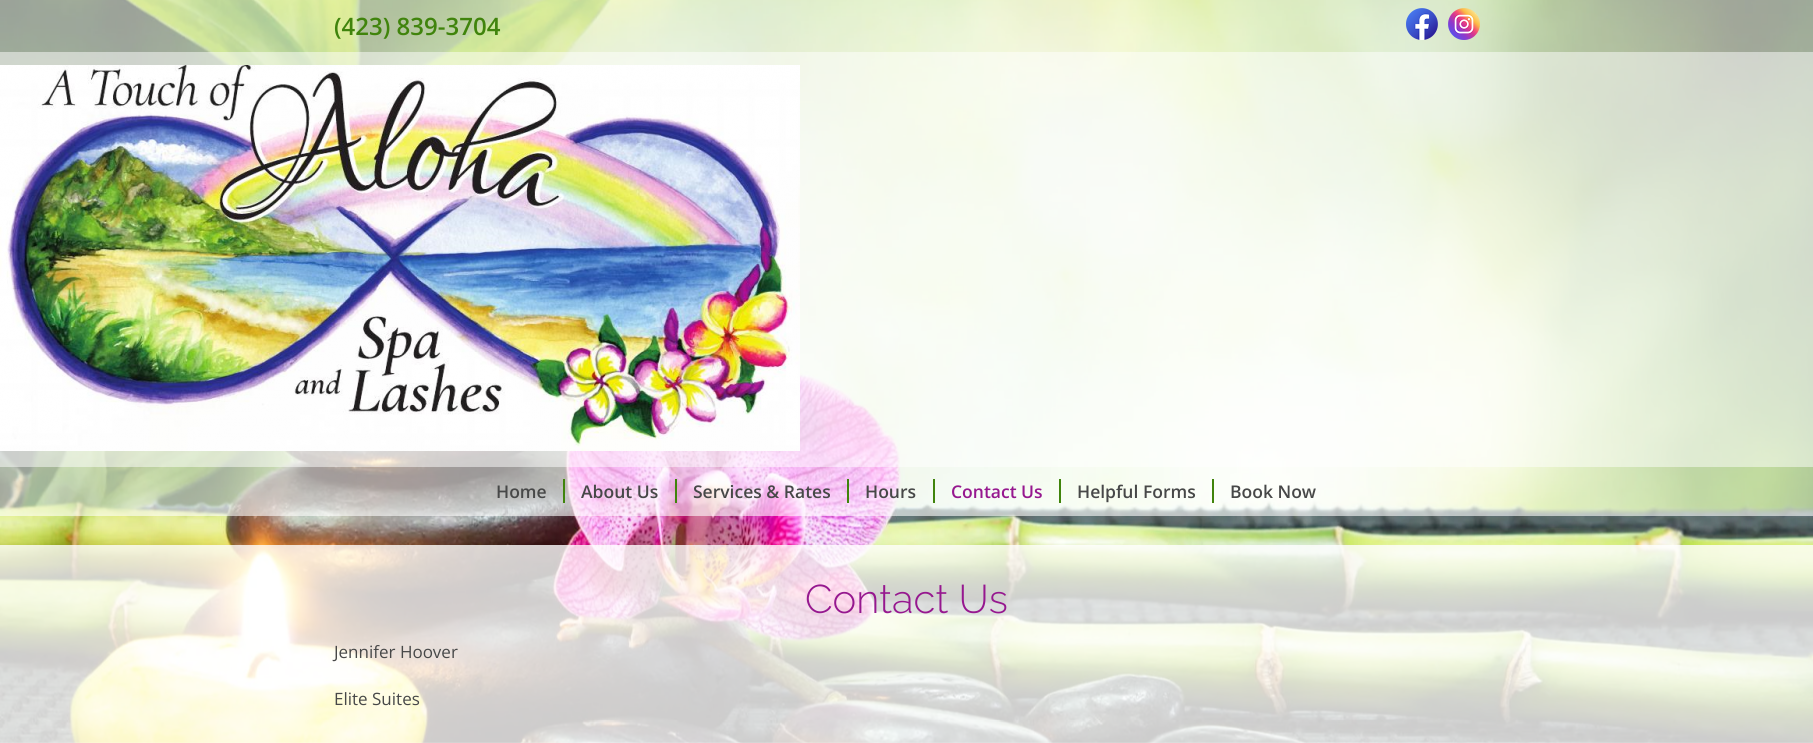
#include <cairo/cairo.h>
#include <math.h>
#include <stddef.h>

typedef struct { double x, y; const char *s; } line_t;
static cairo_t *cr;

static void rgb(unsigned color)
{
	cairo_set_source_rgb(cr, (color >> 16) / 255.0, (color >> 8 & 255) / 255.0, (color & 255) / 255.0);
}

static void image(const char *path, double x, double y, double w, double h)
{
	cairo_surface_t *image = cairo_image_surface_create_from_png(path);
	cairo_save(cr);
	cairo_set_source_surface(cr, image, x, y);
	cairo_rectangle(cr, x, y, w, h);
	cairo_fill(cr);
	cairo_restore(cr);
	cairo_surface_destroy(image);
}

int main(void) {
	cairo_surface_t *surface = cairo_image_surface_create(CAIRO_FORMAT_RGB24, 1813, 743);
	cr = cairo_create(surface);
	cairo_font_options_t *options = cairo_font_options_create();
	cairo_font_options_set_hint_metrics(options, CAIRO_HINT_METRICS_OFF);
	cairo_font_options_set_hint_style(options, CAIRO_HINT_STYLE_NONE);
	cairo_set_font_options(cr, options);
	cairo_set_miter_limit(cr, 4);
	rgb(0xffffff);
	cairo_paint(cr);
	image("img/1.png", 0, 0, 1813, 743);
	cairo_set_source_rgba(cr, 1, 1, 1, 0.6);
	cairo_rectangle(cr, 0, 0, 1813, 52);
	cairo_fill(cr);
	image("img/2.png", 1406, 8, 32, 32);
	image("img/3.png", 1448, 8, 32, 32);
	cairo_set_source_rgba(cr, 1, 1, 1, 0.8);
	cairo_rectangle(cr, 0, 52, 1813, 415);
	cairo_fill(cr);
	image("img/4.png", 0, 65, 800, 386);
	cairo_set_source_rgba(cr, 1, 1, 1, 0.6);
	cairo_rectangle(cr, 0, 467, 1813, 49);
	cairo_fill(cr);
	rgb(0x40840c);
	cairo_rectangle(cr, 563, 479, 2, 24);
	cairo_fill(cr);
	cairo_rectangle(cr, 675, 479, 2, 24);
	cairo_fill(cr);
	cairo_rectangle(cr, 847, 479, 2, 24);
	cairo_fill(cr);
	cairo_rectangle(cr, 933, 479, 2, 24);
	cairo_fill(cr);
	cairo_rectangle(cr, 1059, 479, 2, 24);
	cairo_fill(cr);
	cairo_rectangle(cr, 1212, 479, 2, 24);
	cairo_fill(cr);
	cairo_set_source_rgba(cr, 1, 1, 1, 0.8);
	cairo_rectangle(cr, 0, 545, 1813, 198);
	cairo_fill(cr);
	cairo_select_font_face(cr, "Open Sans SemiBold", CAIRO_FONT_SLANT_NORMAL, CAIRO_FONT_WEIGHT_NORMAL);
	cairo_set_font_size(cr, 24);
	rgb(0x40840c);
	cairo_move_to(cr, 334, 35);
	cairo_show_text(cr, "(423) 839-3704");
	cairo_set_font_size(cr, 17.5);
	rgb(0x474848);
	{
		static const line_t items[] = {
			{496, 498, "Home"},
			{581, 498, "About Us"},
			{693, 498, "Services & Rates"},
			{865, 498, "Hours"},
		};
		for (size_t i = 0; i < sizeof items / sizeof *items; i++) {
			cairo_move_to(cr, items[i].x, items[i].y);
			cairo_show_text(cr, items[i].s);
		}
	}
	rgb(0x96188f);
	cairo_move_to(cr, 951, 498);
	cairo_show_text(cr, "Contact Us");
	rgb(0x474848);
	cairo_move_to(cr, 1077, 498);
	cairo_show_text(cr, "Helpful Forms");
	cairo_move_to(cr, 1230, 498);
	cairo_show_text(cr, "Book Now");
	cairo_select_font_face(cr, "Raleway Light", CAIRO_FONT_SLANT_NORMAL, CAIRO_FONT_WEIGHT_NORMAL);
	cairo_set_font_size(cr, 40);
	rgb(0x96188f);
	cairo_move_to(cr, 805, 613);
	cairo_show_text(cr, "Contact Us");
	cairo_select_font_face(cr, "Open Sans", CAIRO_FONT_SLANT_NORMAL, CAIRO_FONT_WEIGHT_NORMAL);
	cairo_set_font_size(cr, 17);
	rgb(0x474848);
	cairo_move_to(cr, 334, 658);
	cairo_show_text(cr, "Jennifer Hoover");
	cairo_move_to(cr, 334, 705);
	cairo_show_text(cr, "Elite Suites");
	cairo_surface_write_to_png(surface, "page.png");
	cairo_font_options_destroy(options);
	cairo_destroy(cr);
	cairo_surface_destroy(surface);
	return 0;
}
